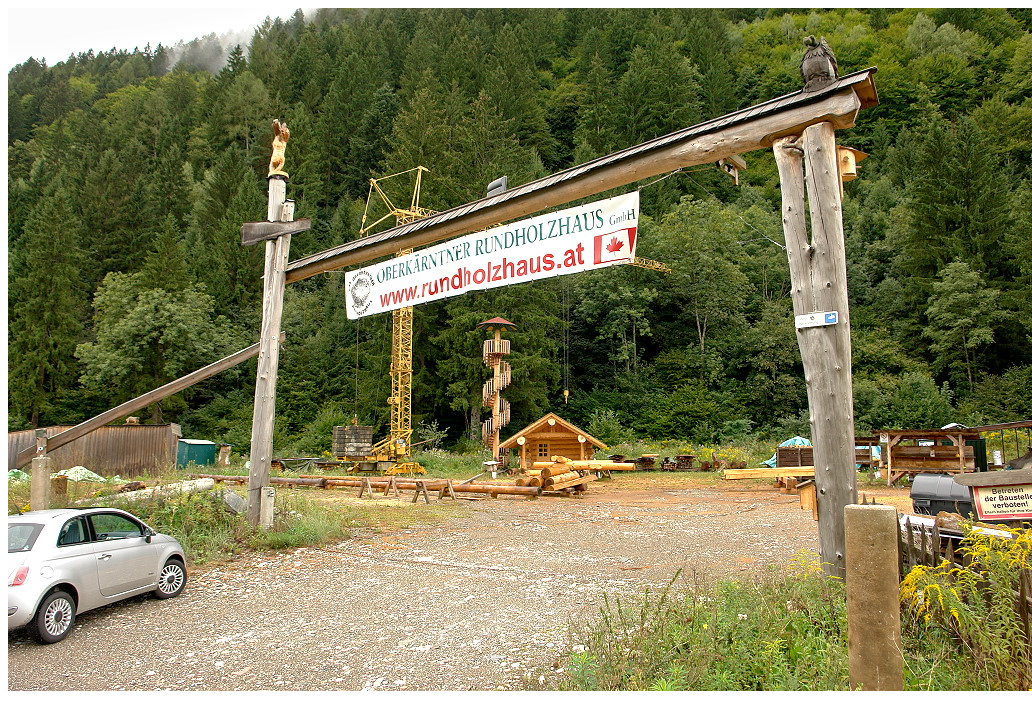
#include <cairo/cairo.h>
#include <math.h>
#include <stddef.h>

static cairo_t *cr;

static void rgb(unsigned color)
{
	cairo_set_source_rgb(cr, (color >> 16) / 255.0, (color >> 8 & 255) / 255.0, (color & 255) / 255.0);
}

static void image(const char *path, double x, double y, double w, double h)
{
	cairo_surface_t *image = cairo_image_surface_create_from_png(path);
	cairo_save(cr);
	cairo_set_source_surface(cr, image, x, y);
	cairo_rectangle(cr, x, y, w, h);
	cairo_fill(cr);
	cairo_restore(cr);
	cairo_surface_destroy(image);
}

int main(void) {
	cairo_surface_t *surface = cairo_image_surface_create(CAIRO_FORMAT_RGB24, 1032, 714);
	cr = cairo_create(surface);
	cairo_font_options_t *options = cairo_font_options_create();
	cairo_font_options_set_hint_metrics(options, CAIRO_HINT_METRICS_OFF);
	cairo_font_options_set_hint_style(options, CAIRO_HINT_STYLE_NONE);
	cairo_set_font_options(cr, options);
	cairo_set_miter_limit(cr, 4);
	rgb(0xffffff);
	cairo_paint(cr);
	image("img/1.png", 8, 8, 1024, 683);
	cairo_surface_write_to_png(surface, "page.png");
	cairo_font_options_destroy(options);
	cairo_destroy(cr);
	cairo_surface_destroy(surface);
	return 0;
}
